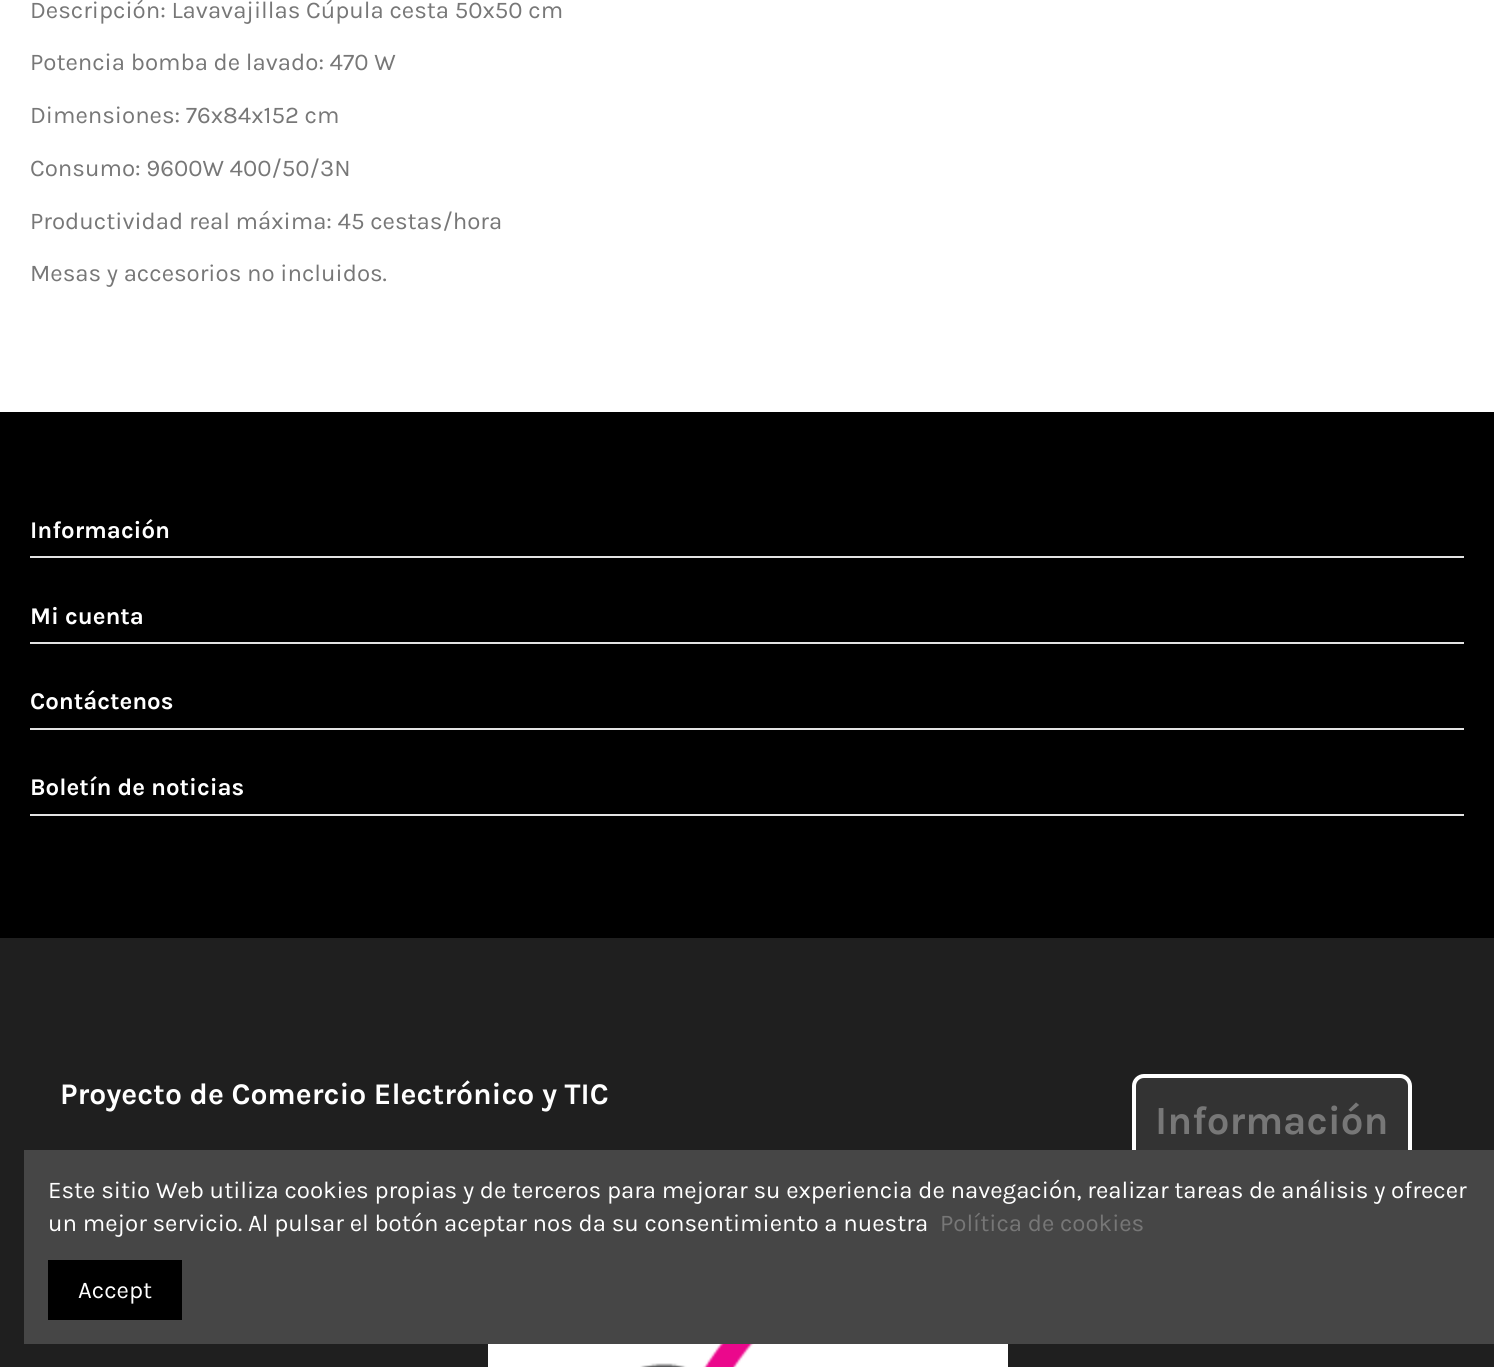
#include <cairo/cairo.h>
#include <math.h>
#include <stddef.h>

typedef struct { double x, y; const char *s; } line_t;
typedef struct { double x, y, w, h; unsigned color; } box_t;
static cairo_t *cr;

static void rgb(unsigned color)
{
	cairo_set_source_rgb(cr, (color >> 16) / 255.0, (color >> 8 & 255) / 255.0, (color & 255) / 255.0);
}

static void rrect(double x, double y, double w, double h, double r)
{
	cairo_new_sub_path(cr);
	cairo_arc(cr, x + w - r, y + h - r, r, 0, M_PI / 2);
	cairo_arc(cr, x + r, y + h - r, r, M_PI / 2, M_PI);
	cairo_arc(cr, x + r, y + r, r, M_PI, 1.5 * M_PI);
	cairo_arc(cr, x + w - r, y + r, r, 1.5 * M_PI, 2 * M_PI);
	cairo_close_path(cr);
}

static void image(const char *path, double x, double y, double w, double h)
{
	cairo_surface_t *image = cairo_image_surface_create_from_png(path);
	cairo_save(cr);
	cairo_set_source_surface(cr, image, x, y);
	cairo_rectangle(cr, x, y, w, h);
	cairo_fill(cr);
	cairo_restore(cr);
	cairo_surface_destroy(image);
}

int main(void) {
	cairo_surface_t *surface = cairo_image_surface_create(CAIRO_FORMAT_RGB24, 1494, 1367);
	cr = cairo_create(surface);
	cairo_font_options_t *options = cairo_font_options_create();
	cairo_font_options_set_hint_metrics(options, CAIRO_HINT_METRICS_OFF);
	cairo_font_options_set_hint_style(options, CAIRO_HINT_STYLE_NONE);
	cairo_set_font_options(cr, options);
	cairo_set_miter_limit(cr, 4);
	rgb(0xffffff);
	cairo_paint(cr);
	{
		static const box_t items[] = {
			{0, 412, 1494, 526, 0x000000},
			{30, 556, 1434, 2, 0xe3e3e3},
			{30, 642, 1434, 2, 0xe3e3e3},
			{30, 728, 1434, 2, 0xe3e3e3},
			{30, 814, 1434, 2, 0xe3e3e3},
			{0, 938, 1494, 429, 0x1f1f1f},
		};
		for (size_t i = 0; i < sizeof items / sizeof *items; i++) {
			rgb(items[i].color);
			cairo_rectangle(cr, items[i].x, items[i].y, items[i].w, items[i].h);
			cairo_fill(cr);
		}
	}
	rgb(0x333333);
	rrect(1134, 1076, 276, 90, 10);
	cairo_fill_preserve(cr);
	rgb(0xffffff);
	cairo_set_line_width(cr, 4);
	cairo_stroke(cr);
	cairo_rectangle(cr, 488, 1344, 520, 23);
	cairo_fill(cr);
	image("img/1.png", 640, 1344, 114, 23);
	rgb(0x464646);
	cairo_rectangle(cr, 24, 1150, 1470, 194);
	cairo_fill(cr);
	rgb(0x000000);
	cairo_rectangle(cr, 48, 1260, 134, 60);
	cairo_fill(cr);
	cairo_select_font_face(cr, "Karla", CAIRO_FONT_SLANT_NORMAL, CAIRO_FONT_WEIGHT_NORMAL);
	cairo_set_font_size(cr, 24);
	rgb(0x777777);
	{
		static const line_t items[] = {
			{30, 18, "Descripción: Lavavajillas Cúpula cesta 50x50 cm"},
			{30, 70, "Potencia bomba de lavado: 470 W"},
			{30, 123, "Dimensiones: 76x84x152 cm"},
			{30, 176, "Consumo: 9600W 400/50/3N"},
			{30, 229, "Productividad real máxima: 45 cestas/hora"},
			{30, 281, "Mesas y accesorios no incluidos."},
		};
		for (size_t i = 0; i < sizeof items / sizeof *items; i++) {
			cairo_move_to(cr, items[i].x, items[i].y);
			cairo_show_text(cr, items[i].s);
		}
	}
	cairo_select_font_face(cr, "Karla", CAIRO_FONT_SLANT_NORMAL, CAIRO_FONT_WEIGHT_BOLD);
	rgb(0xffffff);
	{
		static const line_t items[] = {
			{30, 538, "Información"},
			{30, 624, "Mi cuenta"},
			{30, 709, "Contáctenos"},
			{30, 795, "Boletín de noticias"},
		};
		for (size_t i = 0; i < sizeof items / sizeof *items; i++) {
			cairo_move_to(cr, items[i].x, items[i].y);
			cairo_show_text(cr, items[i].s);
		}
	}
	cairo_set_font_size(cr, 30);
	cairo_move_to(cr, 60, 1104);
	cairo_show_text(cr, "Proyecto de Comercio Electrónico y TIC");
	cairo_set_font_size(cr, 40);
	rgb(0x777777);
	cairo_move_to(cr, 1155, 1134);
	cairo_show_text(cr, "Información");
	cairo_select_font_face(cr, "Karla", CAIRO_FONT_SLANT_NORMAL, CAIRO_FONT_WEIGHT_NORMAL);
	cairo_set_font_size(cr, 24);
	rgb(0xffffff);
	cairo_move_to(cr, 48, 1198);
	cairo_show_text(cr, "Este sitio Web utiliza cookies propias y de terceros para mejorar su experiencia de navegación, realizar tareas de análisis y ofrecer");
	cairo_move_to(cr, 48, 1231);
	cairo_show_text(cr, "un mejor servicio. Al pulsar el botón aceptar nos da su consentimiento a nuestra");
	rgb(0x777777);
	cairo_move_to(cr, 940, 1231);
	cairo_show_text(cr, "Política de cookies");
	rgb(0xffffff);
	cairo_move_to(cr, 78, 1298);
	cairo_show_text(cr, "Accept");
	cairo_surface_write_to_png(surface, "page.png");
	cairo_font_options_destroy(options);
	cairo_destroy(cr);
	cairo_surface_destroy(surface);
	return 0;
}
